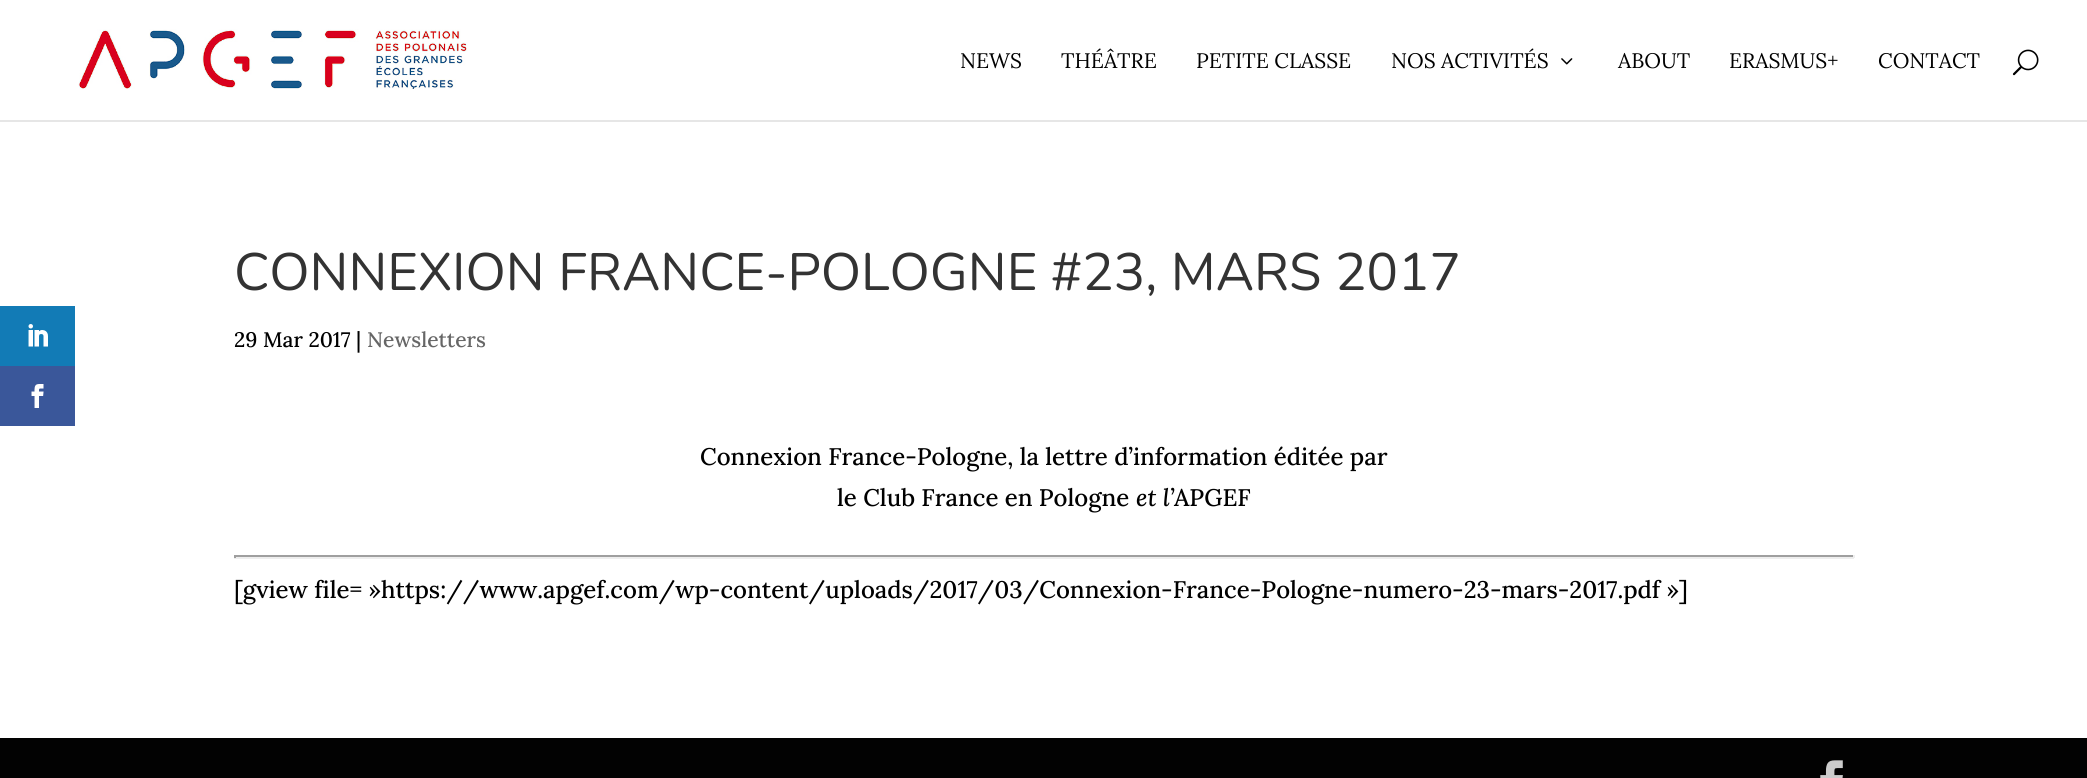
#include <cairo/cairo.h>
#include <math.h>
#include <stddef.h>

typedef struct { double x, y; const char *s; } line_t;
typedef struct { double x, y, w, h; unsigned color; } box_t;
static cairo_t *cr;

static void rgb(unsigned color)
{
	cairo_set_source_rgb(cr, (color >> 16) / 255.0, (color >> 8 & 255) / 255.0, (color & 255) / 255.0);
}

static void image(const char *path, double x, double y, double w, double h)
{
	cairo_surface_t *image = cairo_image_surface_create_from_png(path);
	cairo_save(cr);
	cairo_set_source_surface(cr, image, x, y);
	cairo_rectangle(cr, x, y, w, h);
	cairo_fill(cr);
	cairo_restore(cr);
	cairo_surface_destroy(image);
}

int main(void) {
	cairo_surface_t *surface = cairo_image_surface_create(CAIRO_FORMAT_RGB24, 2087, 778);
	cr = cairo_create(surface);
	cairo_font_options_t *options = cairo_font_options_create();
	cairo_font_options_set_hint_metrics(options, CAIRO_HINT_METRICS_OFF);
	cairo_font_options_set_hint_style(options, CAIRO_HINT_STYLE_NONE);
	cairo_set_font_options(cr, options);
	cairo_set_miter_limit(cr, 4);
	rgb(0xffffff);
	cairo_paint(cr);
	rgb(0x127bb6);
	cairo_rectangle(cr, 0, 306, 75, 60);
	cairo_fill(cr);
	image("img/1.png", 28, 324, 20, 23);
	rgb(0x3a579a);
	cairo_rectangle(cr, 0, 366, 75, 60);
	cairo_fill(cr);
	image("img/2.png", 31, 384, 13, 24);
	rgb(0xe6e6e6);
	cairo_rectangle(cr, 0, 120, 2087, 2);
	cairo_fill(cr);
	image("img/3.png", 78, 29, 390, 61);
	image("img/4.png", 1561, 58, 12, 7);
	image("img/5.png", 2012, 49, 27, 27);
	{
		static const box_t items[] = {
			{234, 555, 1620, 2, 0x9f9f9f},
			{1853, 555, 2, 3, 0xeeeeee},
			{234, 557, 1620, 2, 0xeeeeee},
			{234, 555, 2, 3, 0x9f9f9f},
			{0, 738, 2087, 40, 0x020202},
		};
		for (size_t i = 0; i < sizeof items / sizeof *items; i++) {
			rgb(items[i].color);
			cairo_rectangle(cr, items[i].x, items[i].y, items[i].w, items[i].h);
			cairo_fill(cr);
		}
	}
	image("img/6.png", 1820, 760, 23, 18);
	cairo_select_font_face(cr, "Lora", CAIRO_FONT_SLANT_NORMAL, CAIRO_FONT_WEIGHT_NORMAL);
	cairo_set_font_size(cr, 21);
	rgb(0x000000);
	{
		static const line_t items[] = {
			{960, 68, "NEWS"},
			{1061, 68, "THÉÂTRE"},
			{1196, 68, "PETITE CLASSE"},
			{1391, 68, "NOS ACTIVITÉS"},
			{1618, 68, "ABOUT"},
			{1729, 68, "ERASMUS+"},
			{1878, 68, "CONTACT"},
		};
		for (size_t i = 0; i < sizeof items / sizeof *items; i++) {
			cairo_move_to(cr, items[i].x, items[i].y);
			cairo_show_text(cr, items[i].s);
		}
	}
	cairo_select_font_face(cr, "Nunito", CAIRO_FONT_SLANT_NORMAL, CAIRO_FONT_WEIGHT_NORMAL);
	cairo_set_font_size(cr, 52.5);
	rgb(0x333333);
	cairo_move_to(cr, 234, 290);
	cairo_show_text(cr, "CONNEXION FRANCE-POLOGNE #23, MARS 2017");
	cairo_select_font_face(cr, "Lora Medium", CAIRO_FONT_SLANT_NORMAL, CAIRO_FONT_WEIGHT_NORMAL);
	cairo_set_font_size(cr, 21);
	rgb(0x000000);
	cairo_move_to(cr, 234, 347);
	cairo_show_text(cr, "29 Mar 2017 |");
	rgb(0x666666);
	cairo_move_to(cr, 367, 347);
	cairo_show_text(cr, "Newsletters");
	cairo_set_font_size(cr, 24);
	rgb(0x000000);
	cairo_move_to(cr, 700, 465);
	cairo_show_text(cr, "Connexion France-Pologne, la lettre d’information éditée par");
	cairo_move_to(cr, 837, 506);
	cairo_show_text(cr, "le Club France en Pologne");
	cairo_select_font_face(cr, "Lora Medium", CAIRO_FONT_SLANT_ITALIC, CAIRO_FONT_WEIGHT_NORMAL);
	cairo_move_to(cr, 1136, 506);
	cairo_show_text(cr, "et l’");
	cairo_select_font_face(cr, "Lora Medium", CAIRO_FONT_SLANT_NORMAL, CAIRO_FONT_WEIGHT_NORMAL);
	cairo_move_to(cr, 1174, 506);
	cairo_show_text(cr, "APGEF");
	cairo_move_to(cr, 234, 598);
	cairo_show_text(cr, "[gview file= »https://www.apgef.com/wp-content/uploads/2017/03/Connexion-France-Pologne-numero-23-mars-2017.pdf »]");
	cairo_surface_write_to_png(surface, "page.png");
	cairo_font_options_destroy(options);
	cairo_destroy(cr);
	cairo_surface_destroy(surface);
	return 0;
}
